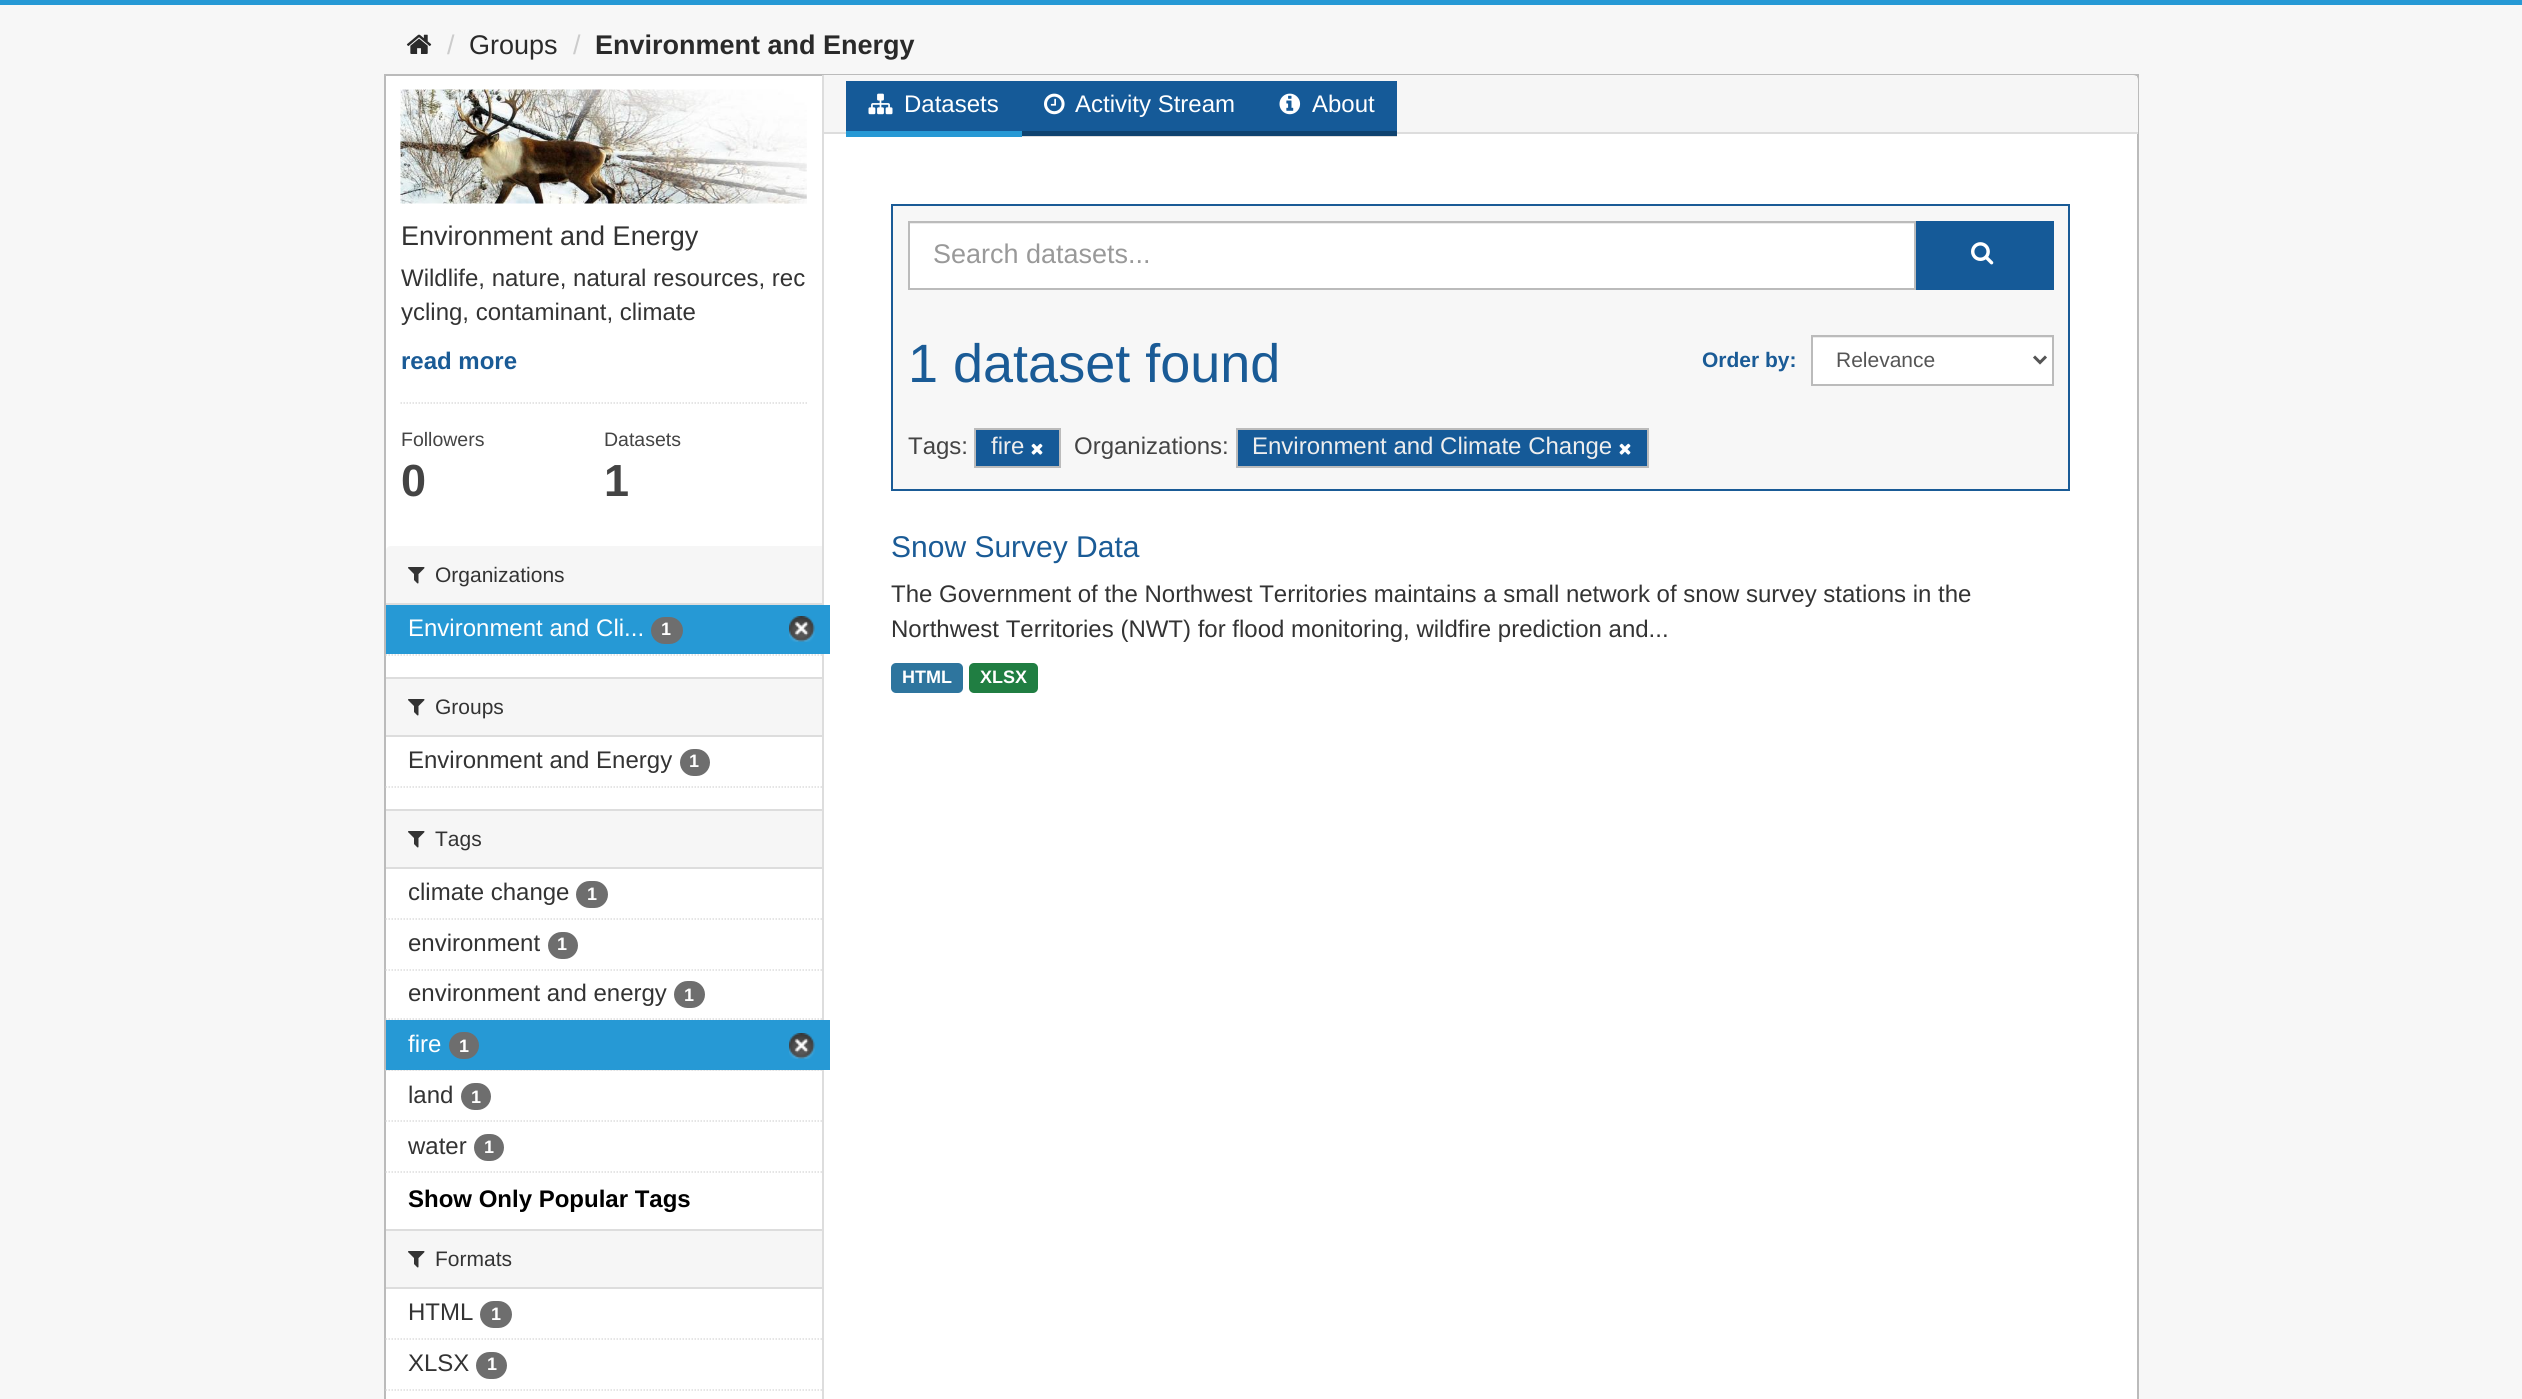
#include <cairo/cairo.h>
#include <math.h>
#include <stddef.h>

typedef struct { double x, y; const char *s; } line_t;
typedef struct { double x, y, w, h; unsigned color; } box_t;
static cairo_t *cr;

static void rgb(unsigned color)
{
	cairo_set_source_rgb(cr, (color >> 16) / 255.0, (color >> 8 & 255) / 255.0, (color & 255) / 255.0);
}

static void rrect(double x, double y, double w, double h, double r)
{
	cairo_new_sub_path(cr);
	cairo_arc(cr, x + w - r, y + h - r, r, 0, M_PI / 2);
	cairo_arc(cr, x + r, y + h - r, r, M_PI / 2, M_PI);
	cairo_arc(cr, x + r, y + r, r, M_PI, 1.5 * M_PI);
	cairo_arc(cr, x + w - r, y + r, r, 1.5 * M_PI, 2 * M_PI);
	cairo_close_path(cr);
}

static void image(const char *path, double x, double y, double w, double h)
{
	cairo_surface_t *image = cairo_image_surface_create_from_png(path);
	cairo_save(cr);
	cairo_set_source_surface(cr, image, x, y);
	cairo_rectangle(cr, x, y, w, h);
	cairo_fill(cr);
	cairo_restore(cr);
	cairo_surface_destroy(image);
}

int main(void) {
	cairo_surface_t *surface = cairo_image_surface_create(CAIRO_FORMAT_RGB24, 2522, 1399);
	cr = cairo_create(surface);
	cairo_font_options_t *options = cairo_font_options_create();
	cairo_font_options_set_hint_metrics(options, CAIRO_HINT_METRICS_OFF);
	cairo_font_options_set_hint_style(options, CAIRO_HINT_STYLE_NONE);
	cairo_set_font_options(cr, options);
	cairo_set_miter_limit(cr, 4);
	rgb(0xf7f7f7);
	cairo_paint(cr);
	rgb(0x2699d5);
	cairo_rectangle(cr, 0, 0, 2522, 5);
	cairo_fill(cr);
	image("img/1.png", 406, 34, 26, 20);
	rgb(0xffffff);
	cairo_rectangle(cr, 385, 75, 1753, 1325);
	cairo_fill_preserve(cr);
	rgb(0xbbbbbb);
	cairo_stroke(cr);
	image("img/2.png", 400, 89, 407, 115);
	cairo_new_path(cr);
	cairo_move_to(cr, 400.5, 403);
	cairo_line_to(cr, 807, 403);
	rgb(0xdddddd);
	cairo_set_line_width(cr, 1.5);
	cairo_set_dash(cr, (double[]){1.5, 1.5}, 2, 0);
	cairo_stroke(cr);
	rgb(0xf6f6f6);
	cairo_new_path(cr);
	cairo_move_to(cr, 391, 546);
	cairo_line_to(cr, 822, 546);
	cairo_line_to(cr, 822, 605);
	cairo_line_to(cr, 386, 605);
	cairo_line_to(cr, 386, 551);
	cairo_curve_to(cr, 386, 548, 388, 546, 391, 546);
	cairo_close_path(cr);
	cairo_fill(cr);
	rgb(0xdddddd);
	cairo_rectangle(cr, 386, 603, 436, 2);
	cairo_fill(cr);
	image("img/3.png", 408, 567, 17, 17);
	cairo_rectangle(cr, 822, 75, 2, 1324);
	cairo_fill(cr);
	rgb(0x2699d5);
	cairo_rectangle(cr, 386, 605, 444, 49);
	cairo_fill(cr);
	rgb(0x6e6e6e);
	rrect(651, 617, 32, 27, 13.5);
	cairo_fill(cr);
	image("img/4.png", 789, 616, 26, 26);
	cairo_new_path(cr);
	cairo_move_to(cr, 385.5, 655);
	cairo_line_to(cr, 822, 655);
	rgb(0xdddddd);
	cairo_stroke(cr);
	{
		static const box_t items[] = {
			{386, 679, 436, 56, 0xf6f6f6},
			{386, 677, 436, 2, 0xdddddd},
			{386, 735, 436, 2, 0xdddddd},
		};
		for (size_t i = 0; i < sizeof items / sizeof *items; i++) {
			rgb(items[i].color);
			cairo_rectangle(cr, items[i].x, items[i].y, items[i].w, items[i].h);
			cairo_fill(cr);
		}
	}
	image("img/3.png", 408, 699, 17, 17);
	rgb(0x6e6e6e);
	rrect(680, 749, 30, 27, 13.5);
	cairo_fill(cr);
	cairo_new_path(cr);
	cairo_move_to(cr, 385.5, 787);
	cairo_line_to(cr, 822, 787);
	rgb(0xdddddd);
	cairo_stroke(cr);
	{
		static const box_t items[] = {
			{386, 811, 436, 56, 0xf6f6f6},
			{386, 809, 436, 2, 0xdddddd},
			{386, 867, 436, 2, 0xdddddd},
		};
		for (size_t i = 0; i < sizeof items / sizeof *items; i++) {
			rgb(items[i].color);
			cairo_rectangle(cr, items[i].x, items[i].y, items[i].w, items[i].h);
			cairo_fill(cr);
		}
	}
	image("img/3.png", 408, 831, 17, 17);
	cairo_new_path(cr);
	cairo_move_to(cr, 385.5, 919);
	cairo_line_to(cr, 822, 919);
	cairo_stroke(cr);
	rgb(0x6e6e6e);
	rrect(576, 881, 32, 27, 13.5);
	cairo_fill(cr);
	cairo_new_path(cr);
	cairo_move_to(cr, 385.5, 970);
	cairo_line_to(cr, 822, 970);
	rgb(0xdddddd);
	cairo_stroke(cr);
	rgb(0x6e6e6e);
	rrect(548, 932, 30, 27, 13.5);
	cairo_fill(cr);
	cairo_new_path(cr);
	cairo_move_to(cr, 385.5, 1019);
	cairo_line_to(cr, 822, 1019);
	rgb(0xdddddd);
	cairo_stroke(cr);
	rgb(0x6e6e6e);
	rrect(674, 981, 31, 27, 13.5);
	cairo_fill(cr);
	rgb(0xf6f6f6);
	cairo_rectangle(cr, 386, 1070, 436, 1);
	cairo_fill(cr);
	cairo_new_path(cr);
	cairo_move_to(cr, 385.5, 1070);
	cairo_line_to(cr, 822, 1070);
	rgb(0xdddddd);
	cairo_stroke(cr);
	rgb(0x2699d5);
	cairo_rectangle(cr, 386, 1020, 444, 50);
	cairo_fill(cr);
	rgb(0x6e6e6e);
	rrect(449, 1032, 30, 27, 13.5);
	cairo_fill(cr);
	image("img/4.png", 789, 1033, 26, 26);
	cairo_new_path(cr);
	cairo_move_to(cr, 385.5, 1121);
	cairo_line_to(cr, 822, 1121);
	rgb(0xdddddd);
	cairo_stroke(cr);
	rgb(0x6e6e6e);
	rrect(461, 1083, 30, 27, 13.5);
	cairo_fill(cr);
	rrect(474, 1134, 30, 27, 13.5);
	cairo_fill(cr);
	cairo_new_path(cr);
	cairo_move_to(cr, 385.5, 1172);
	cairo_line_to(cr, 822, 1172);
	rgb(0xdddddd);
	cairo_stroke(cr);
	{
		static const box_t items[] = {
			{386, 1231, 436, 56, 0xf6f6f6},
			{386, 1229, 436, 2, 0xdddddd},
			{386, 1287, 436, 2, 0xdddddd},
		};
		for (size_t i = 0; i < sizeof items / sizeof *items; i++) {
			rgb(items[i].color);
			cairo_rectangle(cr, items[i].x, items[i].y, items[i].w, items[i].h);
			cairo_fill(cr);
		}
	}
	image("img/3.png", 408, 1251, 17, 17);
	cairo_new_path(cr);
	cairo_move_to(cr, 385.5, 1339);
	cairo_line_to(cr, 822, 1339);
	cairo_stroke(cr);
	rgb(0x6e6e6e);
	rrect(480, 1301, 32, 27, 13.5);
	cairo_fill(cr);
	rrect(476, 1352, 31, 27, 13.5);
	cairo_fill(cr);
	cairo_new_path(cr);
	cairo_move_to(cr, 385.5, 1390);
	cairo_line_to(cr, 822, 1390);
	rgb(0xdddddd);
	cairo_stroke(cr);
	rgb(0xf6f6f6);
	cairo_new_path(cr);
	cairo_move_to(cr, 824, 75);
	cairo_line_to(cr, 2133, 75);
	cairo_curve_to(cr, 2136, 75, 2138, 77, 2138, 80);
	cairo_line_to(cr, 2138, 134);
	cairo_line_to(cr, 824, 134);
	cairo_close_path(cr);
	cairo_fill(cr);
	{
		static const box_t items[] = {
			{824, 132, 1314, 2, 0xdddddd},
			{1022, 136, 375, 1, 0xdddddd},
			{846, 81, 551, 50, 0x155a98},
			{846, 131, 176, 6, 0x2699d5},
		};
		for (size_t i = 0; i < sizeof items / sizeof *items; i++) {
			rgb(items[i].color);
			cairo_rectangle(cr, items[i].x, items[i].y, items[i].w, items[i].h);
			cairo_fill(cr);
		}
	}
	image("img/5.png", 868, 93, 25, 22);
	rgb(0x0f4370);
	cairo_rectangle(cr, 1022, 131, 375, 5);
	cairo_fill(cr);
	image("img/6.png", 1044, 93, 21, 22);
	image("img/7.png", 1279, 93, 22, 22);
	rgb(0xf7f7f7);
	cairo_rectangle(cr, 892, 205, 1177, 285);
	cairo_fill_preserve(cr);
	rgb(0x1a5b96);
	cairo_set_line_width(cr, 2);
	cairo_set_dash(cr, NULL, 0, 0);
	cairo_stroke(cr);
	rgb(0xffffff);
	cairo_rectangle(cr, 910, 224, 1004, 64);
	cairo_fill(cr);
	rgb(0xececec);
	cairo_rectangle(cr, 909, 223, 1005, 1);
	cairo_fill(cr);
	cairo_rectangle(cr, 909, 222, 1006, 67);
	rgb(0xbbbbbb);
	cairo_stroke(cr);
	rgb(0x155a98);
	cairo_rectangle(cr, 1916, 221, 138, 69);
	cairo_fill(cr);
	image("img/8.png", 1971, 242, 23, 23);
	rgb(0xffffff);
	cairo_rectangle(cr, 1813, 338, 239, 46);
	cairo_fill(cr);
	rgb(0xececec);
	cairo_rectangle(cr, 1812, 337, 240, 1);
	cairo_fill(cr);
	cairo_rectangle(cr, 1812, 336, 241, 49);
	rgb(0xbbbbbb);
	cairo_stroke(cr);
	cairo_new_path(cr);
	cairo_move_to(cr, 2034, 356.5);
	cairo_line_to(cr, 2040, 362.5);
	cairo_line_to(cr, 2046, 356.5);
	rgb(0x555555);
	cairo_set_line_width(cr, 3);
	cairo_stroke(cr);
	rgb(0x155a98);
	cairo_rectangle(cr, 975, 429, 85, 38);
	cairo_fill_preserve(cr);
	rgb(0xbbbbbb);
	cairo_set_line_width(cr, 2);
	cairo_stroke(cr);
	image("img/9.png", 1031, 443, 12, 12);
	rgb(0x155a98);
	cairo_rectangle(cr, 1237, 429, 411, 38);
	cairo_fill_preserve(cr);
	rgb(0xbbbbbb);
	cairo_stroke(cr);
	image("img/9.png", 1619, 443, 12, 12);
	rgb(0x2e759e);
	rrect(891, 663, 72, 30, 5);
	cairo_fill(cr);
	rgb(0x207e42);
	rrect(969, 663, 69, 30, 5);
	cairo_fill(cr);
	cairo_select_font_face(cr, "Liberation Sans", CAIRO_FONT_SLANT_NORMAL, CAIRO_FONT_WEIGHT_NORMAL);
	cairo_set_font_size(cr, 27);
	rgb(0xcccccc);
	cairo_move_to(cr, 447, 54);
	cairo_show_text(cr, "/");
	rgb(0x2a2a2a);
	cairo_move_to(cr, 469, 54);
	cairo_show_text(cr, "Groups");
	rgb(0xcccccc);
	cairo_move_to(cr, 573, 54);
	cairo_show_text(cr, "/");
	cairo_select_font_face(cr, "Liberation Sans", CAIRO_FONT_SLANT_NORMAL, CAIRO_FONT_WEIGHT_BOLD);
	rgb(0x2a2a2a);
	cairo_move_to(cr, 595, 54);
	cairo_show_text(cr, "Environment and Energy");
	cairo_select_font_face(cr, "Liberation Sans", CAIRO_FONT_SLANT_NORMAL, CAIRO_FONT_WEIGHT_NORMAL);
	rgb(0x333333);
	cairo_move_to(cr, 401, 245);
	cairo_show_text(cr, "Environment and Energy");
	cairo_set_font_size(cr, 24);
	cairo_move_to(cr, 401, 286);
	cairo_show_text(cr, "Wildlife, nature, natural resources, rec");
	cairo_move_to(cr, 401, 320);
	cairo_show_text(cr, "ycling, contaminant, climate");
	cairo_select_font_face(cr, "Liberation Sans", CAIRO_FONT_SLANT_NORMAL, CAIRO_FONT_WEIGHT_BOLD);
	rgb(0x1a5b96);
	cairo_move_to(cr, 401, 369);
	cairo_show_text(cr, "read more");
	cairo_select_font_face(cr, "Liberation Sans", CAIRO_FONT_SLANT_NORMAL, CAIRO_FONT_WEIGHT_NORMAL);
	cairo_set_font_size(cr, 19.5);
	rgb(0x444444);
	cairo_move_to(cr, 401, 446);
	cairo_show_text(cr, "Followers");
	cairo_select_font_face(cr, "Liberation Sans", CAIRO_FONT_SLANT_NORMAL, CAIRO_FONT_WEIGHT_BOLD);
	cairo_set_font_size(cr, 45);
	cairo_move_to(cr, 401, 496);
	cairo_show_text(cr, "0");
	cairo_select_font_face(cr, "Liberation Sans", CAIRO_FONT_SLANT_NORMAL, CAIRO_FONT_WEIGHT_NORMAL);
	cairo_set_font_size(cr, 19.5);
	cairo_move_to(cr, 604, 446);
	cairo_show_text(cr, "Datasets");
	cairo_select_font_face(cr, "Liberation Sans", CAIRO_FONT_SLANT_NORMAL, CAIRO_FONT_WEIGHT_BOLD);
	cairo_set_font_size(cr, 45);
	cairo_move_to(cr, 604, 496);
	cairo_show_text(cr, "1");
	cairo_select_font_face(cr, "Liberation Sans", CAIRO_FONT_SLANT_NORMAL, CAIRO_FONT_WEIGHT_NORMAL);
	cairo_set_font_size(cr, 21);
	rgb(0x333333);
	cairo_move_to(cr, 435, 582);
	cairo_show_text(cr, "Organizations");
	cairo_set_font_size(cr, 24);
	rgb(0xffffff);
	cairo_move_to(cr, 408, 636);
	cairo_show_text(cr, "Environment and Cli...");
	cairo_select_font_face(cr, "Liberation Sans", CAIRO_FONT_SLANT_NORMAL, CAIRO_FONT_WEIGHT_BOLD);
	cairo_set_font_size(cr, 18);
	cairo_move_to(cr, 661, 635);
	cairo_show_text(cr, "1");
	cairo_select_font_face(cr, "Liberation Sans", CAIRO_FONT_SLANT_NORMAL, CAIRO_FONT_WEIGHT_NORMAL);
	cairo_set_font_size(cr, 21);
	rgb(0x333333);
	cairo_move_to(cr, 435, 714);
	cairo_show_text(cr, "Groups");
	cairo_set_font_size(cr, 24);
	cairo_move_to(cr, 408, 768);
	cairo_show_text(cr, "Environment and Energy");
	cairo_select_font_face(cr, "Liberation Sans", CAIRO_FONT_SLANT_NORMAL, CAIRO_FONT_WEIGHT_BOLD);
	cairo_set_font_size(cr, 18);
	rgb(0xffffff);
	cairo_move_to(cr, 689, 767);
	cairo_show_text(cr, "1");
	cairo_select_font_face(cr, "Liberation Sans", CAIRO_FONT_SLANT_NORMAL, CAIRO_FONT_WEIGHT_NORMAL);
	cairo_set_font_size(cr, 21);
	rgb(0x333333);
	cairo_move_to(cr, 435, 846);
	cairo_show_text(cr, "Tags");
	cairo_set_font_size(cr, 24);
	cairo_move_to(cr, 408, 900);
	cairo_show_text(cr, "climate change");
	cairo_select_font_face(cr, "Liberation Sans", CAIRO_FONT_SLANT_NORMAL, CAIRO_FONT_WEIGHT_BOLD);
	cairo_set_font_size(cr, 18);
	rgb(0xffffff);
	cairo_move_to(cr, 587, 900);
	cairo_show_text(cr, "1");
	cairo_select_font_face(cr, "Liberation Sans", CAIRO_FONT_SLANT_NORMAL, CAIRO_FONT_WEIGHT_NORMAL);
	cairo_set_font_size(cr, 24);
	rgb(0x333333);
	cairo_move_to(cr, 408, 951);
	cairo_show_text(cr, "environment");
	cairo_select_font_face(cr, "Liberation Sans", CAIRO_FONT_SLANT_NORMAL, CAIRO_FONT_WEIGHT_BOLD);
	cairo_set_font_size(cr, 18);
	rgb(0xffffff);
	cairo_move_to(cr, 557, 950);
	cairo_show_text(cr, "1");
	cairo_select_font_face(cr, "Liberation Sans", CAIRO_FONT_SLANT_NORMAL, CAIRO_FONT_WEIGHT_NORMAL);
	cairo_set_font_size(cr, 24);
	rgb(0x333333);
	cairo_move_to(cr, 408, 1001);
	cairo_show_text(cr, "environment and energy");
	cairo_select_font_face(cr, "Liberation Sans", CAIRO_FONT_SLANT_NORMAL, CAIRO_FONT_WEIGHT_BOLD);
	cairo_set_font_size(cr, 18);
	rgb(0xffffff);
	cairo_move_to(cr, 684, 1001);
	cairo_show_text(cr, "1");
	cairo_select_font_face(cr, "Liberation Sans", CAIRO_FONT_SLANT_NORMAL, CAIRO_FONT_WEIGHT_NORMAL);
	cairo_set_font_size(cr, 24);
	cairo_move_to(cr, 408, 1052);
	cairo_show_text(cr, "fire");
	cairo_select_font_face(cr, "Liberation Sans", CAIRO_FONT_SLANT_NORMAL, CAIRO_FONT_WEIGHT_BOLD);
	cairo_set_font_size(cr, 18);
	cairo_move_to(cr, 459, 1052);
	cairo_show_text(cr, "1");
	cairo_select_font_face(cr, "Liberation Sans", CAIRO_FONT_SLANT_NORMAL, CAIRO_FONT_WEIGHT_NORMAL);
	cairo_set_font_size(cr, 24);
	rgb(0x333333);
	cairo_move_to(cr, 408, 1103);
	cairo_show_text(cr, "land");
	cairo_select_font_face(cr, "Liberation Sans", CAIRO_FONT_SLANT_NORMAL, CAIRO_FONT_WEIGHT_BOLD);
	cairo_set_font_size(cr, 18);
	rgb(0xffffff);
	cairo_move_to(cr, 471, 1103);
	cairo_show_text(cr, "1");
	cairo_select_font_face(cr, "Liberation Sans", CAIRO_FONT_SLANT_NORMAL, CAIRO_FONT_WEIGHT_NORMAL);
	cairo_set_font_size(cr, 24);
	rgb(0x333333);
	cairo_move_to(cr, 408, 1154);
	cairo_show_text(cr, "water");
	cairo_select_font_face(cr, "Liberation Sans", CAIRO_FONT_SLANT_NORMAL, CAIRO_FONT_WEIGHT_BOLD);
	cairo_set_font_size(cr, 18);
	rgb(0xffffff);
	cairo_move_to(cr, 484, 1153);
	cairo_show_text(cr, "1");
	cairo_set_font_size(cr, 24);
	rgb(0x000000);
	cairo_move_to(cr, 408, 1207);
	cairo_show_text(cr, "Show Only Popular Tags");
	cairo_select_font_face(cr, "Liberation Sans", CAIRO_FONT_SLANT_NORMAL, CAIRO_FONT_WEIGHT_NORMAL);
	cairo_set_font_size(cr, 21);
	rgb(0x333333);
	cairo_move_to(cr, 435, 1266);
	cairo_show_text(cr, "Formats");
	cairo_set_font_size(cr, 24);
	cairo_move_to(cr, 408, 1320);
	cairo_show_text(cr, "HTML");
	cairo_select_font_face(cr, "Liberation Sans", CAIRO_FONT_SLANT_NORMAL, CAIRO_FONT_WEIGHT_BOLD);
	cairo_set_font_size(cr, 18);
	rgb(0xffffff);
	cairo_move_to(cr, 491, 1320);
	cairo_show_text(cr, "1");
	cairo_select_font_face(cr, "Liberation Sans", CAIRO_FONT_SLANT_NORMAL, CAIRO_FONT_WEIGHT_NORMAL);
	cairo_set_font_size(cr, 24);
	rgb(0x333333);
	cairo_move_to(cr, 408, 1371);
	cairo_show_text(cr, "XLSX");
	cairo_select_font_face(cr, "Liberation Sans", CAIRO_FONT_SLANT_NORMAL, CAIRO_FONT_WEIGHT_BOLD);
	cairo_set_font_size(cr, 18);
	rgb(0xffffff);
	cairo_move_to(cr, 487, 1370);
	cairo_show_text(cr, "1");
	cairo_select_font_face(cr, "Liberation Sans", CAIRO_FONT_SLANT_NORMAL, CAIRO_FONT_WEIGHT_NORMAL);
	cairo_set_font_size(cr, 24);
	{
		static const line_t items[] = {
			{904, 112, "Datasets"},
			{1075, 112, "Activity Stream"},
			{1312, 112, "About"},
		};
		for (size_t i = 0; i < sizeof items / sizeof *items; i++) {
			cairo_move_to(cr, items[i].x, items[i].y);
			cairo_show_text(cr, items[i].s);
		}
	}
	cairo_set_font_size(cr, 27);
	rgb(0x999999);
	cairo_move_to(cr, 933, 263);
	cairo_show_text(cr, "Search datasets...");
	cairo_set_font_size(cr, 54);
	rgb(0x1a5b96);
	cairo_move_to(cr, 908, 382);
	cairo_show_text(cr, "1 dataset found");
	cairo_select_font_face(cr, "Liberation Sans", CAIRO_FONT_SLANT_NORMAL, CAIRO_FONT_WEIGHT_BOLD);
	cairo_set_font_size(cr, 21);
	cairo_move_to(cr, 1702, 367);
	cairo_show_text(cr, "Order by:");
	cairo_select_font_face(cr, "Liberation Sans", CAIRO_FONT_SLANT_NORMAL, CAIRO_FONT_WEIGHT_NORMAL);
	rgb(0x555555);
	cairo_move_to(cr, 1836, 367);
	cairo_show_text(cr, "Relevance");
	cairo_set_font_size(cr, 24);
	rgb(0x444444);
	cairo_move_to(cr, 908, 454);
	cairo_show_text(cr, "Tags:");
	rgb(0xeeeeee);
	cairo_move_to(cr, 991, 454);
	cairo_show_text(cr, "fire");
	rgb(0x444444);
	cairo_move_to(cr, 1074, 454);
	cairo_show_text(cr, "Organizations:");
	rgb(0xeeeeee);
	cairo_move_to(cr, 1252, 454);
	cairo_show_text(cr, "Environment and Climate Change");
	cairo_set_font_size(cr, 30);
	rgb(0x1a5b96);
	cairo_move_to(cr, 891, 557);
	cairo_show_text(cr, "Snow Survey Data");
	cairo_set_font_size(cr, 24);
	rgb(0x333333);
	cairo_move_to(cr, 891, 602);
	cairo_show_text(cr, "The Government of the Northwest Territories maintains a small network of snow survey stations in the");
	cairo_move_to(cr, 891, 637);
	cairo_show_text(cr, "Northwest Territories (NWT) for flood monitoring, wildfire prediction and...");
	cairo_select_font_face(cr, "Liberation Sans", CAIRO_FONT_SLANT_NORMAL, CAIRO_FONT_WEIGHT_BOLD);
	cairo_set_font_size(cr, 18);
	rgb(0xffffff);
	cairo_move_to(cr, 902, 683);
	cairo_show_text(cr, "HTML");
	cairo_move_to(cr, 980, 683);
	cairo_show_text(cr, "XLSX");
	cairo_surface_write_to_png(surface, "page.png");
	cairo_font_options_destroy(options);
	cairo_destroy(cr);
	cairo_surface_destroy(surface);
	return 0;
}
